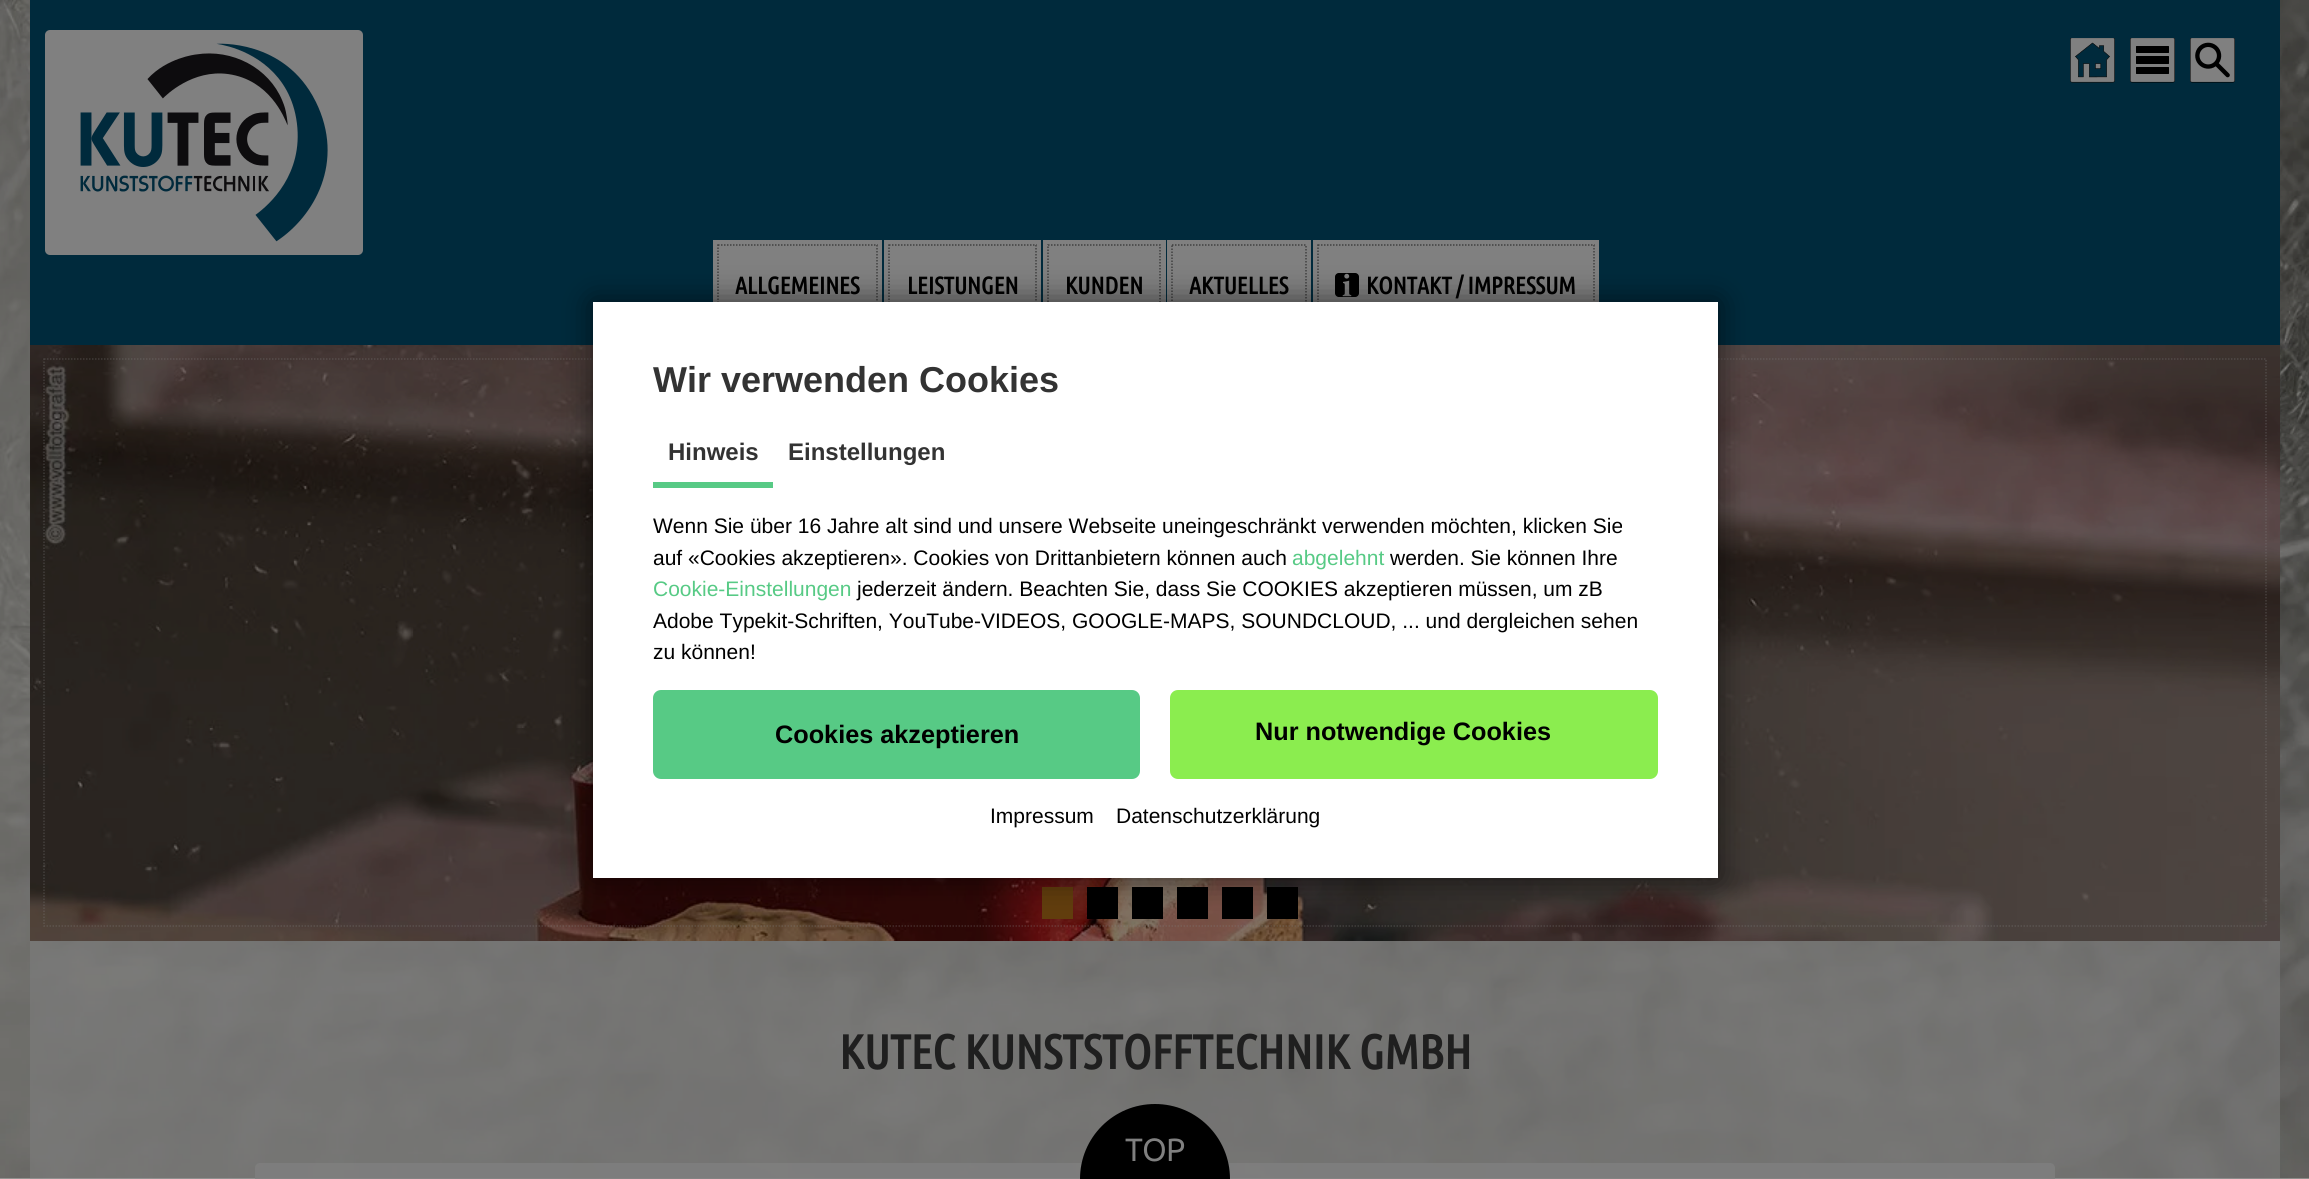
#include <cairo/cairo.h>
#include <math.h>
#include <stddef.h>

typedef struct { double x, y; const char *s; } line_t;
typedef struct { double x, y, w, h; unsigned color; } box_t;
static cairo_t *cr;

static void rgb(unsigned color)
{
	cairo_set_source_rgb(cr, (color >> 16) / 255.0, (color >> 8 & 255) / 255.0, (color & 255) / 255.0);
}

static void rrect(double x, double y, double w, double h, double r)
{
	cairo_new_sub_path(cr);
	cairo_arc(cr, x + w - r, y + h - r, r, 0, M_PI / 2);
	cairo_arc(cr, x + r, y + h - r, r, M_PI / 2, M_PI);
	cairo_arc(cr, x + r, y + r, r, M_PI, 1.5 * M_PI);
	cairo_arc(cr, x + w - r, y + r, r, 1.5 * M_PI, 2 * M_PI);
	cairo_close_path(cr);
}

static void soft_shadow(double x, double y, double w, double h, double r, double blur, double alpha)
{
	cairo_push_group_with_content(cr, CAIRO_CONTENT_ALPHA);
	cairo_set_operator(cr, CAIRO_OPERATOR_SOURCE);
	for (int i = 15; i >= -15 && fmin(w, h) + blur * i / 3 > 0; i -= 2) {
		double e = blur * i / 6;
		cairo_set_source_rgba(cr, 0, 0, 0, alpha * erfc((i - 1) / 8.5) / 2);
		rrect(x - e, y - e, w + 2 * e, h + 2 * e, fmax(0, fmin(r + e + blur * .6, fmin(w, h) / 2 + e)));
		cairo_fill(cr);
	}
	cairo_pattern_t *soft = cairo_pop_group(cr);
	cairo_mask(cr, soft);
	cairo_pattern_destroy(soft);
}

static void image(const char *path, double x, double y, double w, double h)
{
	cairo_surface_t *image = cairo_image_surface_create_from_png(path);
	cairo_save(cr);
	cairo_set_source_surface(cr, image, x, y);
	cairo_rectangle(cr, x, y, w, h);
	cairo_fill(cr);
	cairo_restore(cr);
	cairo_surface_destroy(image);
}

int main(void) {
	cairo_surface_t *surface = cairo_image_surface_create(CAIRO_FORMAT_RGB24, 2309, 1179);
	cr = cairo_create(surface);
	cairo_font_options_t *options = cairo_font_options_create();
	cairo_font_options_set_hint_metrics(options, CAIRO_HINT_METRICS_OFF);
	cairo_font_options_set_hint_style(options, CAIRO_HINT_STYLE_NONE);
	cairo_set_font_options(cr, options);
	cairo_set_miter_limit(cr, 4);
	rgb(0xffffff);
	cairo_paint(cr);
	image("img/1.png", 0, 0, 2309, 1179);
	rgb(0x002a3c);
	cairo_rectangle(cr, 30, 0, 2250, 345);
	cairo_fill(cr);
	image("img/2.png", 45, 30, 318, 225);
	image("img/3.png", 2070, 38, 45, 45);
	image("img/4.png", 2130, 38, 45, 45);
	image("img/5.png", 2190, 38, 45, 45);
	{
		static const box_t items[] = {
			{713, 240, 169, 62, 0x808080},
			{884, 240, 157, 62, 0x808080},
			{1043, 240, 123, 62, 0x808080},
			{1167, 240, 144, 62, 0x808080},
			{1313, 240, 286, 62, 0x808080},
		};
		for (size_t i = 0; i < sizeof items / sizeof *items; i++) {
			rgb(items[i].color);
			cairo_rectangle(cr, items[i].x, items[i].y, items[i].w, items[i].h);
			cairo_fill(cr);
		}
	}
	image("img/7.png", 30, 345, 2250, 596);
	cairo_new_path(cr);
	cairo_move_to(cr, 44, 359);
	cairo_line_to(cr, 2266, 359);
	cairo_line_to(cr, 2266, 926);
	cairo_line_to(cr, 44, 926);
	cairo_close_path(cr);
	cairo_set_source_rgba(cr, 0.502, 0.502, 0.502, 0.3);
	cairo_set_line_width(cr, 1.5);
	cairo_set_dash(cr, (double[]){1.5, 1.5}, 2, 0);
	cairo_stroke(cr);
	rgb(0x613d0d);
	cairo_rectangle(cr, 1042, 887, 31, 32);
	cairo_fill(cr);
	rgb(0x000000);
	cairo_rectangle(cr, 1087, 887, 31, 32);
	cairo_fill(cr);
	cairo_rectangle(cr, 1132, 887, 31, 32);
	cairo_fill(cr);
	cairo_rectangle(cr, 1177, 887, 31, 32);
	cairo_fill(cr);
	cairo_rectangle(cr, 1222, 887, 31, 32);
	cairo_fill(cr);
	cairo_rectangle(cr, 1267, 887, 31, 32);
	cairo_fill(cr);
	cairo_set_source_rgba(cr, 0.502, 0.502, 0.502, 0.3);
	cairo_rectangle(cr, 30, 941, 2250, 238);
	cairo_fill(cr);
	cairo_set_source_rgba(cr, 0.502, 0.502, 0.502, 0.8);
	rrect(255, 1163, 1800, 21, 5);
	cairo_fill(cr);
	rgb(0x000000);
	cairo_new_path(cr);
	cairo_move_to(cr, 1155, 1104);
	cairo_curve_to(cr, 1196.5, 1104, 1230, 1137.5, 1230, 1179);
	cairo_line_to(cr, 1080, 1179);
	cairo_curve_to(cr, 1080, 1137.5, 1113.5, 1104, 1155, 1104);
	cairo_close_path(cr);
	cairo_fill(cr);
	cairo_select_font_face(cr, "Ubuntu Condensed", CAIRO_FONT_SLANT_NORMAL, CAIRO_FONT_WEIGHT_BOLD);
	cairo_set_font_size(cr, 24);
	cairo_move_to(cr, 735, 294);
	cairo_show_text(cr, "ALLGEMEINES");
	cairo_new_path(cr);
	cairo_move_to(cr, 718, 245);
	cairo_line_to(cr, 877, 245);
	cairo_line_to(cr, 877, 325);
	cairo_line_to(cr, 718, 325);
	cairo_close_path(cr);
	rgb(0x404040);
	cairo_stroke(cr);
	rgb(0x000000);
	cairo_move_to(cr, 907, 294);
	cairo_show_text(cr, "LEISTUNGEN");
	cairo_new_path(cr);
	cairo_move_to(cr, 889, 245);
	cairo_line_to(cr, 1036, 245);
	cairo_line_to(cr, 1036, 325);
	cairo_line_to(cr, 889, 325);
	cairo_close_path(cr);
	rgb(0x404040);
	cairo_stroke(cr);
	rgb(0x000000);
	cairo_move_to(cr, 1065, 294);
	cairo_show_text(cr, "KUNDEN");
	cairo_new_path(cr);
	cairo_move_to(cr, 1048, 245);
	cairo_line_to(cr, 1160, 245);
	cairo_line_to(cr, 1160, 325);
	cairo_line_to(cr, 1048, 325);
	cairo_close_path(cr);
	rgb(0x404040);
	cairo_stroke(cr);
	rgb(0x000000);
	cairo_move_to(cr, 1189, 294);
	cairo_show_text(cr, "AKTUELLES");
	cairo_new_path(cr);
	cairo_move_to(cr, 1172, 245);
	cairo_line_to(cr, 1306, 245);
	cairo_line_to(cr, 1306, 325);
	cairo_line_to(cr, 1172, 325);
	cairo_close_path(cr);
	rgb(0x404040);
	cairo_stroke(cr);
	rgb(0x000000);
	cairo_move_to(cr, 1366, 294);
	cairo_show_text(cr, "KONTAKT / IMPRESSUM");
	cairo_new_path(cr);
	cairo_move_to(cr, 1318, 245);
	cairo_line_to(cr, 1594, 245);
	cairo_line_to(cr, 1594, 325);
	cairo_line_to(cr, 1318, 325);
	cairo_close_path(cr);
	rgb(0x404040);
	cairo_stroke(cr);
	image("img/6.png", 1335, 273, 24, 24);
	cairo_set_font_size(cr, 48);
	rgb(0x1f1f1f);
	cairo_move_to(cr, 839, 1069);
	cairo_show_text(cr, "KUTEC KUNSTSTOFFTECHNIK GMBH");
	cairo_select_font_face(cr, "Ubuntu", CAIRO_FONT_SLANT_NORMAL, CAIRO_FONT_WEIGHT_BOLD);
	cairo_set_font_size(cr, 31);
	rgb(0x808080);
	cairo_move_to(cr, 1125, 1161);
	cairo_show_text(cr, "TOP");
	rgb(0x000000);
	soft_shadow(593, 302, 1125, 576, 0, 15, 0.6);
	rgb(0xffffff);
	cairo_rectangle(cr, 593, 302, 1125, 576);
	cairo_fill(cr);
	cairo_select_font_face(cr, "Liberation Sans", CAIRO_FONT_SLANT_NORMAL, CAIRO_FONT_WEIGHT_BOLD);
	cairo_set_font_size(cr, 36);
	rgb(0x333333);
	cairo_move_to(cr, 653, 392);
	cairo_show_text(cr, "Wir verwenden Cookies");
	rgb(0x57ca85);
	cairo_rectangle(cr, 653, 482, 120, 6);
	cairo_fill(cr);
	cairo_set_font_size(cr, 24);
	rgb(0x333333);
	cairo_move_to(cr, 668, 460);
	cairo_show_text(cr, "Hinweis");
	cairo_move_to(cr, 788, 460);
	cairo_show_text(cr, "Einstellungen");
	cairo_select_font_face(cr, "Liberation Sans", CAIRO_FONT_SLANT_NORMAL, CAIRO_FONT_WEIGHT_NORMAL);
	cairo_set_font_size(cr, 21);
	rgb(0x000000);
	cairo_move_to(cr, 653, 533);
	cairo_show_text(cr, "Wenn Sie über 16 Jahre alt sind und unsere Webseite uneingeschränkt verwenden möchten, klicken Sie");
	cairo_move_to(cr, 653, 565);
	cairo_show_text(cr, "auf «Cookies akzeptieren». Cookies von Drittanbietern können auch");
	rgb(0x57ca85);
	cairo_move_to(cr, 1292, 565);
	cairo_show_text(cr, "abgelehnt");
	rgb(0x000000);
	cairo_move_to(cr, 1390, 565);
	cairo_show_text(cr, "werden. Sie können Ihre");
	rgb(0x57ca85);
	cairo_move_to(cr, 653, 596);
	cairo_show_text(cr, "Cookie-Einstellungen");
	rgb(0x000000);
	{
		static const line_t items[] = {
			{857, 596, "jederzeit ändern. Beachten Sie, dass Sie COOKIES akzeptieren müssen, um zB"},
			{653, 628, "Adobe Typekit-Schriften, YouTube-VIDEOS, GOOGLE-MAPS, SOUNDCLOUD, ... und dergleichen sehen"},
			{653, 659, "zu können!"},
		};
		for (size_t i = 0; i < sizeof items / sizeof *items; i++) {
			cairo_move_to(cr, items[i].x, items[i].y);
			cairo_show_text(cr, items[i].s);
		}
	}
	rgb(0x57ca85);
	rrect(654.5, 691.5, 484, 86, 6.5);
	cairo_fill_preserve(cr);
	cairo_set_line_width(cr, 3);
	cairo_set_dash(cr, NULL, 0, 0);
	cairo_stroke(cr);
	cairo_select_font_face(cr, "Liberation Sans", CAIRO_FONT_SLANT_NORMAL, CAIRO_FONT_WEIGHT_BOLD);
	cairo_set_font_size(cr, 25.25);
	rgb(0x000000);
	cairo_move_to(cr, 775, 743);
	cairo_show_text(cr, "Cookies akzeptieren");
	rgb(0x8bed4f);
	rrect(1170, 690, 488, 89, 8);
	cairo_fill(cr);
	rgb(0x000000);
	cairo_move_to(cr, 1255, 740);
	cairo_show_text(cr, "Nur notwendige Cookies");
	cairo_select_font_face(cr, "Liberation Sans", CAIRO_FONT_SLANT_NORMAL, CAIRO_FONT_WEIGHT_NORMAL);
	cairo_set_font_size(cr, 21);
	cairo_move_to(cr, 990, 823);
	cairo_show_text(cr, "Impressum");
	cairo_move_to(cr, 1116, 823);
	cairo_show_text(cr, "Datenschutzerklärung");
	cairo_surface_write_to_png(surface, "page.png");
	cairo_font_options_destroy(options);
	cairo_destroy(cr);
	cairo_surface_destroy(surface);
	return 0;
}
